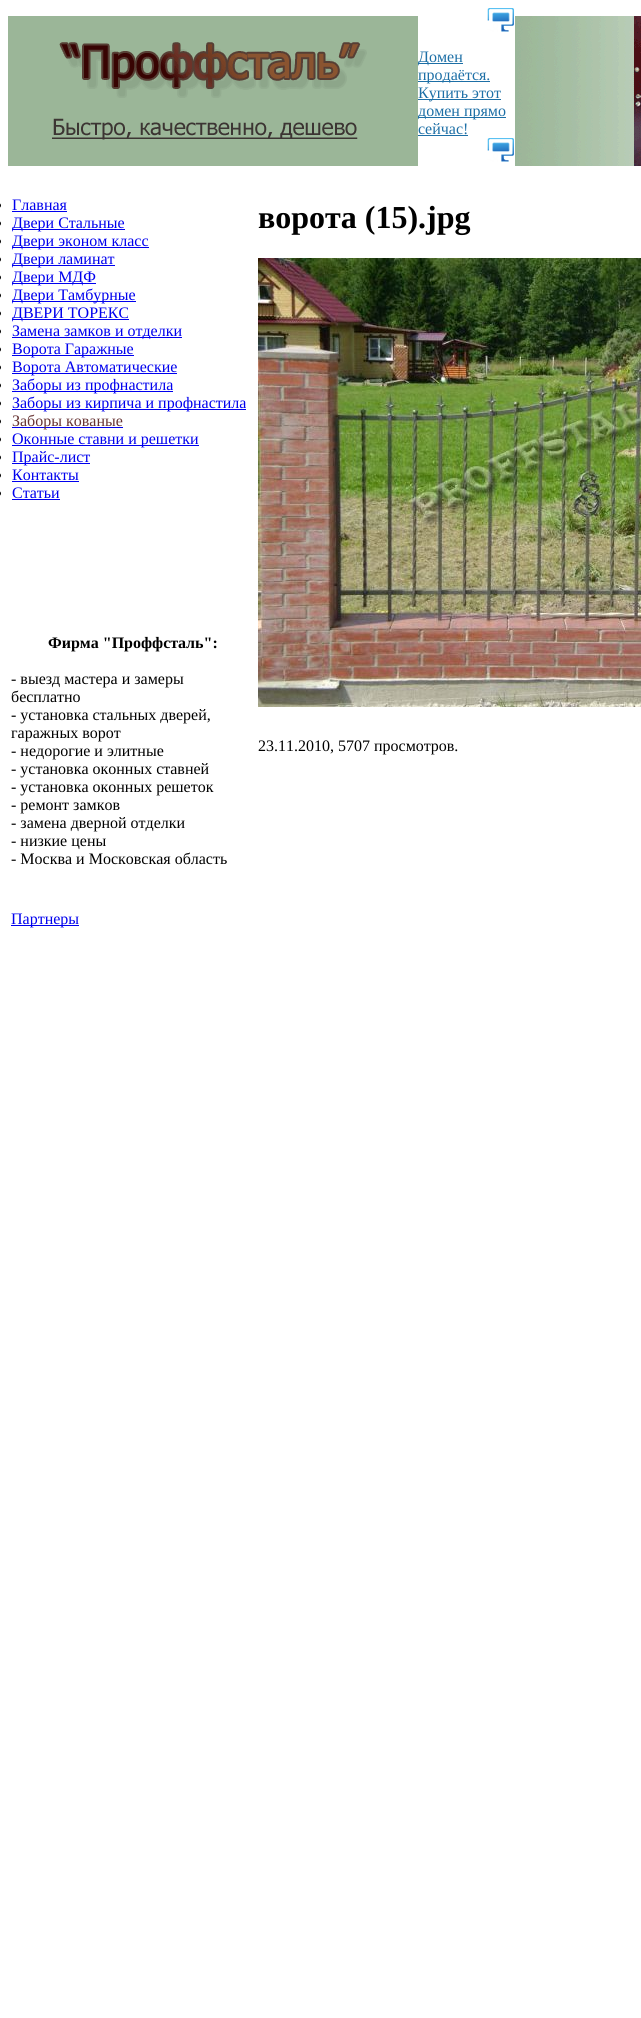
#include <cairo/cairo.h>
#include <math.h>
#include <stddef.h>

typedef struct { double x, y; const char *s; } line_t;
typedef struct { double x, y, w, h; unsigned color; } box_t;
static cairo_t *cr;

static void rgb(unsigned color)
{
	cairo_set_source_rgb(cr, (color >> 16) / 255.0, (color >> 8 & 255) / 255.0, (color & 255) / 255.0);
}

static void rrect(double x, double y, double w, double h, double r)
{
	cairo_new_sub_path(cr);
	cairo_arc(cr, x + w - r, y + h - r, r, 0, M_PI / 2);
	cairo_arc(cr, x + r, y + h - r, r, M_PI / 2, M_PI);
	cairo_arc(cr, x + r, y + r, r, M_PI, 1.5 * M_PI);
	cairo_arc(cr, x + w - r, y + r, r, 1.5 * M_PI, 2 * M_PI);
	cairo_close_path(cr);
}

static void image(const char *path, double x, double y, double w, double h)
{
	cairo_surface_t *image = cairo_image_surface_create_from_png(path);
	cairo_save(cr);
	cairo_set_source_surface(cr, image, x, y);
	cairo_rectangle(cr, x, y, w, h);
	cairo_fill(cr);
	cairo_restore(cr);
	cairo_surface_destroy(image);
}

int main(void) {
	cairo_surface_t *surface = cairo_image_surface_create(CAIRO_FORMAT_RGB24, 641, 2018);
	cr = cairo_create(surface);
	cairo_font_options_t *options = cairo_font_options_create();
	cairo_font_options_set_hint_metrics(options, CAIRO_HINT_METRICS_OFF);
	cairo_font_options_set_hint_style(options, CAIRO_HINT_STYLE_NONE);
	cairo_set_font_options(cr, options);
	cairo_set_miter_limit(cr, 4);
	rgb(0xffffff);
	cairo_paint(cr);
	image("img/1.png", 8, 16, 250, 150);
	image("img/2.png", 258, 16, 160, 150);
	image("img/3.png", 487, 8, 27, 24);
	{
		static const box_t items[] = {
			{418, 63, 45, 1, 0x1d6fa6},
			{418, 81, 72, 1, 0x1d6fa6},
			{418, 99, 83, 1, 0x1d6fa6},
			{418, 117, 88, 1, 0x1d6fa6},
			{418, 135, 50, 1, 0x1d6fa6},
		};
		for (size_t i = 0; i < sizeof items / sizeof *items; i++) {
			rgb(items[i].color);
			cairo_rectangle(cr, items[i].x, items[i].y, items[i].w, items[i].h);
			cairo_fill(cr);
		}
	}
	image("img/3.png", 487, 138, 27, 24);
	image("img/4.png", 515, 16, 126, 150);
	rgb(0x000000);
	rrect(-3, 203, 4, 5, 2.5);
	cairo_fill(cr);
	rgb(0x0000ee);
	cairo_rectangle(cr, 12, 211, 55, 1);
	cairo_fill(cr);
	rgb(0x000000);
	rrect(-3, 221, 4, 5, 2.5);
	cairo_fill(cr);
	rgb(0x0000ee);
	cairo_rectangle(cr, 12, 229, 113, 1);
	cairo_fill(cr);
	rgb(0x000000);
	rrect(-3, 239, 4, 5, 2.5);
	cairo_fill(cr);
	rgb(0x0000ee);
	cairo_rectangle(cr, 12, 247, 137, 1);
	cairo_fill(cr);
	rgb(0x000000);
	rrect(-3, 257, 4, 5, 2.5);
	cairo_fill(cr);
	rgb(0x0000ee);
	cairo_rectangle(cr, 12, 265, 103, 1);
	cairo_fill(cr);
	rgb(0x000000);
	rrect(-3, 275, 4, 5, 2.5);
	cairo_fill(cr);
	rgb(0x0000ee);
	cairo_rectangle(cr, 12, 283, 84, 1);
	cairo_fill(cr);
	rgb(0x000000);
	rrect(-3, 293, 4, 5, 2.5);
	cairo_fill(cr);
	rgb(0x0000ee);
	cairo_rectangle(cr, 12, 301, 124, 1);
	cairo_fill(cr);
	rgb(0x000000);
	rrect(-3, 311, 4, 5, 2.5);
	cairo_fill(cr);
	rgb(0x0000ee);
	cairo_rectangle(cr, 12, 319, 117, 1);
	cairo_fill(cr);
	rgb(0x000000);
	rrect(-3, 329, 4, 5, 2.5);
	cairo_fill(cr);
	rgb(0x0000ee);
	cairo_rectangle(cr, 12, 337, 170, 1);
	cairo_fill(cr);
	rgb(0x000000);
	rrect(-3, 347, 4, 5, 2.5);
	cairo_fill(cr);
	rgb(0x0000ee);
	cairo_rectangle(cr, 12, 355, 122, 1);
	cairo_fill(cr);
	rgb(0x000000);
	rrect(-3, 365, 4, 5, 2.5);
	cairo_fill(cr);
	rgb(0x0000ee);
	cairo_rectangle(cr, 12, 373, 165, 1);
	cairo_fill(cr);
	rgb(0x000000);
	rrect(-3, 383, 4, 5, 2.5);
	cairo_fill(cr);
	rgb(0x0000ee);
	cairo_rectangle(cr, 12, 391, 161, 1);
	cairo_fill(cr);
	rgb(0x000000);
	rrect(-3, 401, 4, 5, 2.5);
	cairo_fill(cr);
	rgb(0x0000ee);
	cairo_rectangle(cr, 12, 409, 234, 1);
	cairo_fill(cr);
	rgb(0x000000);
	rrect(-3, 419, 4, 5, 2.5);
	cairo_fill(cr);
	rgb(0x0000ee);
	cairo_rectangle(cr, 12, 427, 111, 1);
	cairo_fill(cr);
	rgb(0x000000);
	rrect(-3, 437, 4, 5, 2.5);
	cairo_fill(cr);
	rgb(0x0000ee);
	cairo_rectangle(cr, 12, 445, 187, 1);
	cairo_fill(cr);
	rgb(0x000000);
	rrect(-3, 455, 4, 5, 2.5);
	cairo_fill(cr);
	rgb(0x0000ee);
	cairo_rectangle(cr, 12, 463, 78, 1);
	cairo_fill(cr);
	rgb(0x000000);
	rrect(-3, 473, 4, 5, 2.5);
	cairo_fill(cr);
	rgb(0x0000ee);
	cairo_rectangle(cr, 12, 481, 67, 1);
	cairo_fill(cr);
	rgb(0x000000);
	rrect(-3, 491, 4, 5, 2.5);
	cairo_fill(cr);
	rgb(0x0000ee);
	cairo_rectangle(cr, 12, 499, 48, 1);
	cairo_fill(cr);
	cairo_rectangle(cr, 11, 925, 68, 1);
	cairo_fill(cr);
	image("img/5.png", 258, 258, 383, 449);
	cairo_select_font_face(cr, "Liberation Serif", CAIRO_FONT_SLANT_NORMAL, CAIRO_FONT_WEIGHT_NORMAL);
	cairo_set_font_size(cr, 16);
	rgb(0x1d6fa6);
	{
		static const line_t items[] = {
			{418, 62, "Домен"},
			{418, 80, "продаётся."},
			{418, 98, "Купить этот"},
			{418, 116, "домен прямо"},
			{418, 134, "сейчас!"},
		};
		for (size_t i = 0; i < sizeof items / sizeof *items; i++) {
			cairo_move_to(cr, items[i].x, items[i].y);
			cairo_show_text(cr, items[i].s);
		}
	}
	rgb(0x0000ee);
	{
		static const line_t items[] = {
			{12, 210, "Главная"},
			{12, 228, "Двери Стальные"},
			{12, 246, "Двери эконом класс"},
			{12, 264, "Двери ламинат"},
			{12, 282, "Двери МДФ"},
			{12, 300, "Двери Тамбурные"},
			{12, 318, "ДВЕРИ ТОРЕКС"},
			{12, 336, "Замена замков и отделки"},
			{12, 354, "Ворота Гаражные"},
			{12, 372, "Ворота Автоматические"},
			{12, 390, "Заборы из профнастила"},
			{12, 408, "Заборы из кирпича и профнастила"},
		};
		for (size_t i = 0; i < sizeof items / sizeof *items; i++) {
			cairo_move_to(cr, items[i].x, items[i].y);
			cairo_show_text(cr, items[i].s);
		}
	}
	rgb(0x663333);
	cairo_move_to(cr, 12, 426);
	cairo_show_text(cr, "Заборы кованые");
	rgb(0x0000ee);
	{
		static const line_t items[] = {
			{12, 444, "Оконные ставни и решетки"},
			{12, 462, "Прайс-лист"},
			{12, 480, "Контакты"},
			{12, 498, "Статьи"},
		};
		for (size_t i = 0; i < sizeof items / sizeof *items; i++) {
			cairo_move_to(cr, items[i].x, items[i].y);
			cairo_show_text(cr, items[i].s);
		}
	}
	cairo_select_font_face(cr, "Liberation Serif", CAIRO_FONT_SLANT_NORMAL, CAIRO_FONT_WEIGHT_BOLD);
	rgb(0x000000);
	cairo_move_to(cr, 48, 648);
	cairo_show_text(cr, "Фирма \"Проффсталь\":");
	cairo_select_font_face(cr, "Liberation Serif", CAIRO_FONT_SLANT_NORMAL, CAIRO_FONT_WEIGHT_NORMAL);
	{
		static const line_t items[] = {
			{11, 684, "- выезд мастера и замеры"},
			{11, 702, "бесплатно"},
			{11, 720, "- установка стальных дверей,"},
			{11, 738, "гаражных ворот"},
			{11, 756, "- недорогие и элитные"},
			{11, 774, "- установка оконных ставней"},
			{11, 792, "- установка оконных решеток"},
			{11, 810, "- ремонт замков"},
			{11, 828, "- замена дверной отделки"},
			{11, 846, "- низкие цены"},
			{11, 864, "- Москва и Московская область"},
		};
		for (size_t i = 0; i < sizeof items / sizeof *items; i++) {
			cairo_move_to(cr, items[i].x, items[i].y);
			cairo_show_text(cr, items[i].s);
		}
	}
	rgb(0x0000ee);
	cairo_move_to(cr, 11, 924);
	cairo_show_text(cr, "Партнеры");
	cairo_select_font_face(cr, "Liberation Serif", CAIRO_FONT_SLANT_NORMAL, CAIRO_FONT_WEIGHT_BOLD);
	cairo_set_font_size(cr, 32);
	rgb(0x000000);
	cairo_move_to(cr, 258, 228);
	cairo_show_text(cr, "ворота (15).jpg");
	cairo_select_font_face(cr, "Liberation Serif", CAIRO_FONT_SLANT_NORMAL, CAIRO_FONT_WEIGHT_NORMAL);
	cairo_set_font_size(cr, 16);
	cairo_move_to(cr, 258, 751);
	cairo_show_text(cr, "23.11.2010, 5707 просмотров.");
	cairo_surface_write_to_png(surface, "page.png");
	cairo_font_options_destroy(options);
	cairo_destroy(cr);
	cairo_surface_destroy(surface);
	return 0;
}
